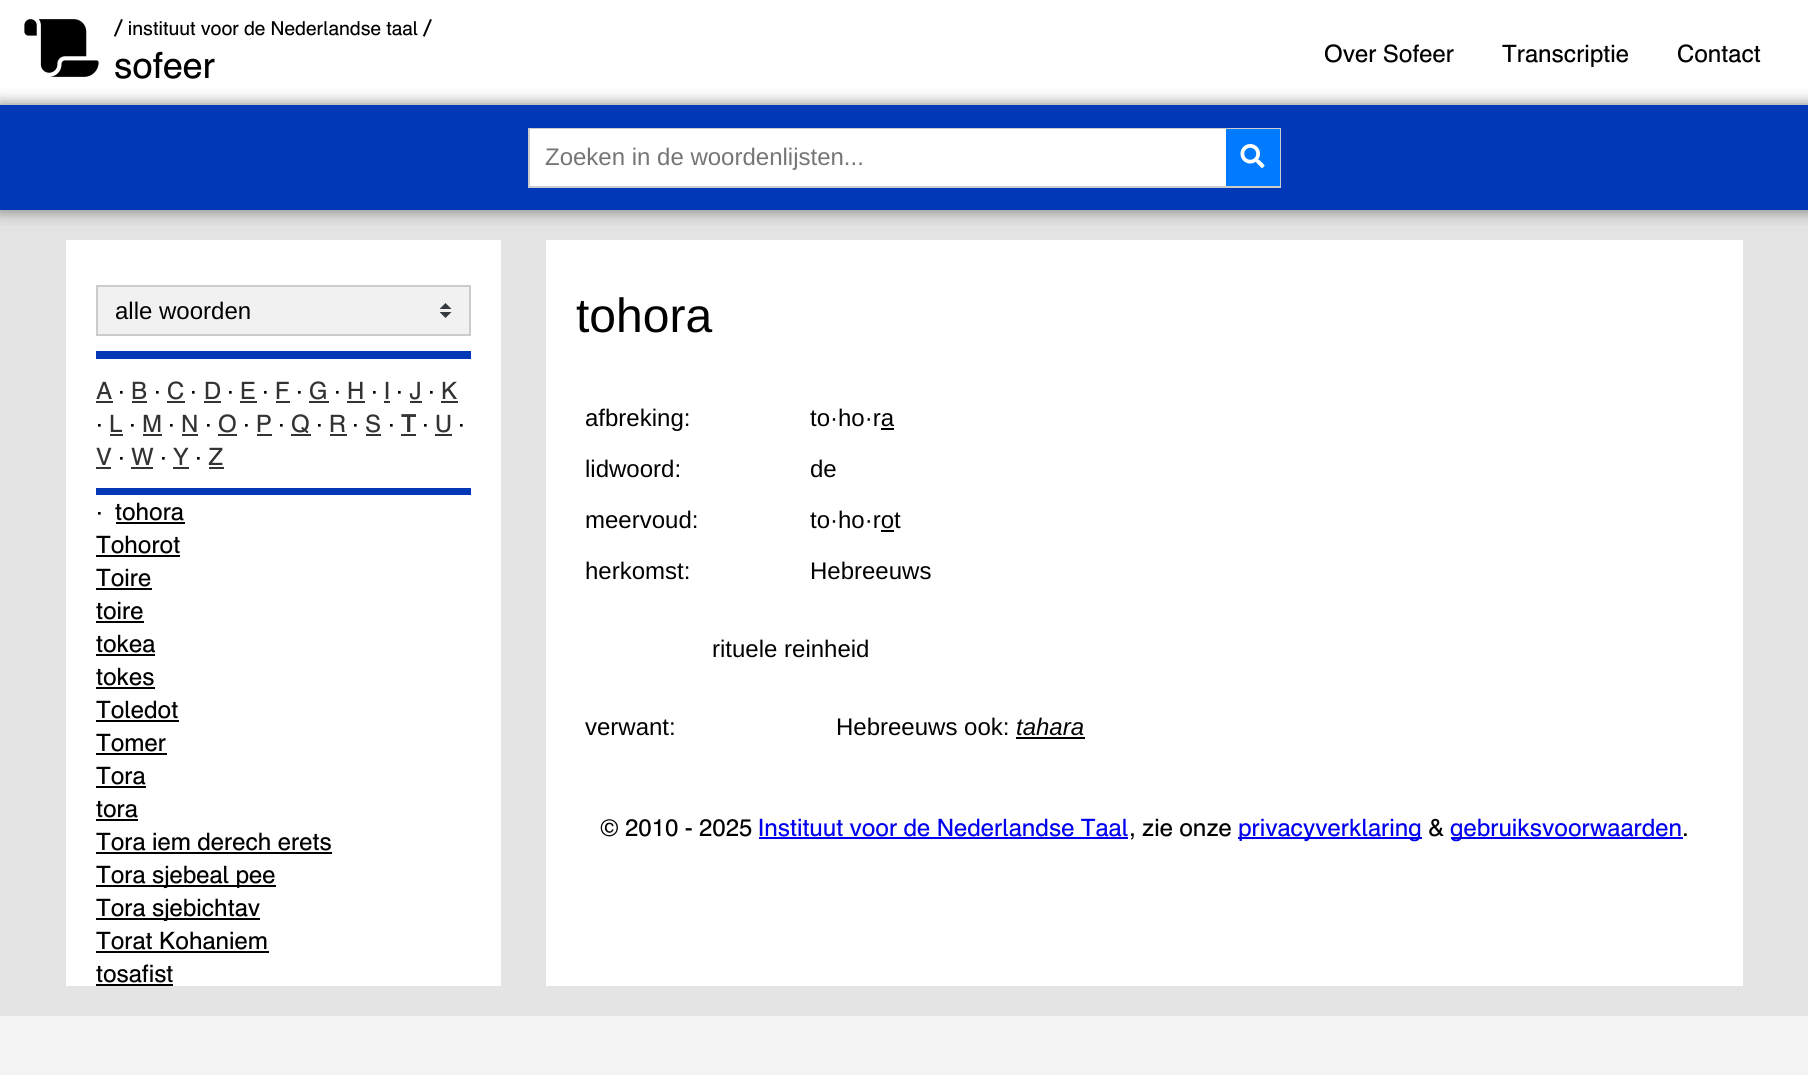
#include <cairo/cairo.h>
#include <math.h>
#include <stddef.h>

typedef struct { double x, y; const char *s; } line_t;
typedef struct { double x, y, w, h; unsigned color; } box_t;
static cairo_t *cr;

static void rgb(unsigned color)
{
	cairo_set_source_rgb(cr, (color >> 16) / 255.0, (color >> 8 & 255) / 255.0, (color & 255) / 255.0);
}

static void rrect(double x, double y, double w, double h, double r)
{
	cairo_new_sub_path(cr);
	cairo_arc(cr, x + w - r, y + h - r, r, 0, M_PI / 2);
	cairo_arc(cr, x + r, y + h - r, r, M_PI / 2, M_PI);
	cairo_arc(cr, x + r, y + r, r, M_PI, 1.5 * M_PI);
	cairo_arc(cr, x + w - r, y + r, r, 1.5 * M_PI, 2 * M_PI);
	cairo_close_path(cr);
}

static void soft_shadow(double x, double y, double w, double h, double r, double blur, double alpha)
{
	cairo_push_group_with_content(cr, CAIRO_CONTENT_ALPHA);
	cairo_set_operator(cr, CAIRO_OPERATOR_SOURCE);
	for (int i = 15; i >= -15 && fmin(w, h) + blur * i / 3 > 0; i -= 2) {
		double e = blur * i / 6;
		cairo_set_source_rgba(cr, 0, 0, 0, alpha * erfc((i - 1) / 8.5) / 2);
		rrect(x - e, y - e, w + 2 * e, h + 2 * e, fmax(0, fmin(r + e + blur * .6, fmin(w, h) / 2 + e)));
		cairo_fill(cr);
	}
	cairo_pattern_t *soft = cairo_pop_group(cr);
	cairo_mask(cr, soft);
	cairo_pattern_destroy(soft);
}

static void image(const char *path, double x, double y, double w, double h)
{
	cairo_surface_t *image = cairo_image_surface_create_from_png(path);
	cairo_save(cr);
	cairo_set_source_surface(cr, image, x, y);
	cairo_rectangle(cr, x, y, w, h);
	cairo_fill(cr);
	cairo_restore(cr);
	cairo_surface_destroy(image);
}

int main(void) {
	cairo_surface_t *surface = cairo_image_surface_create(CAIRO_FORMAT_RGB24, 1808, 1075);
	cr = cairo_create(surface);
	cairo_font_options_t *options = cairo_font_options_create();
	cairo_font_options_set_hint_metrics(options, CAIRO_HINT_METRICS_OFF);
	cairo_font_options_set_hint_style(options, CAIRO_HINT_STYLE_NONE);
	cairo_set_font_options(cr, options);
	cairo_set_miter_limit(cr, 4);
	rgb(0xf4f4f4);
	cairo_paint(cr);
	rgb(0xffffff);
	cairo_rectangle(cr, 0, 0, 1808, 105);
	cairo_fill(cr);
	image("img/1.png", 24, 19, 75, 58);
	rgb(0xe4e4e4);
	cairo_rectangle(cr, 0, 210, 1808, 806);
	cairo_fill(cr);
	rgb(0x888888);
	soft_shadow(-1, 104, 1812, 108, 0, 7.5, 1);
	rgb(0x0038b8);
	cairo_rectangle(cr, 0, 105, 1808, 105);
	cairo_fill(cr);
	cairo_rectangle(cr, 529, 129, 751, 58);
	rgb(0xcccccc);
	cairo_stroke(cr);
	rgb(0xffffff);
	cairo_rectangle(cr, 530, 129, 696, 57);
	cairo_fill(cr);
	rgb(0x007bff);
	cairo_rectangle(cr, 1226, 129, 54, 57);
	cairo_fill(cr);
	image("img/2.png", 1240, 144, 25, 24);
	{
		static const box_t items[] = {
			{66, 240, 435, 746, 0xffffff},
			{96, 351, 375, 8, 0x0038b8},
			{98, 287, 371, 47, 0xf1f1f1},
		};
		for (size_t i = 0; i < sizeof items / sizeof *items; i++) {
			rgb(items[i].color);
			cairo_rectangle(cr, items[i].x, items[i].y, items[i].w, items[i].h);
			cairo_fill(cr);
		}
	}
	image("img/3.png", 440, 303, 12, 15);
	cairo_rectangle(cr, 97, 286, 373, 49);
	rgb(0xcccccc);
	cairo_stroke(cr);
	{
		static const box_t items[] = {
			{96, 488, 375, 7, 0x0038b8},
			{96, 401, 17, 2, 0x333333},
			{132, 401, 15, 2, 0x333333},
			{167, 401, 18, 2, 0x333333},
			{204, 401, 17, 2, 0x333333},
			{240, 401, 17, 2, 0x333333},
			{276, 401, 14, 2, 0x333333},
			{309, 401, 20, 2, 0x333333},
			{347, 401, 18, 2, 0x333333},
			{384, 401, 6, 2, 0x333333},
			{410, 401, 12, 2, 0x333333},
			{441, 401, 17, 2, 0x333333},
			{110, 434, 13, 2, 0x333333},
			{143, 434, 19, 2, 0x333333},
			{182, 434, 16, 2, 0x333333},
			{218, 434, 19, 2, 0x333333},
			{257, 434, 15, 2, 0x333333},
			{291, 434, 20, 2, 0x333333},
			{330, 434, 17, 2, 0x333333},
			{366, 434, 15, 2, 0x333333},
			{401, 434, 15, 2, 0x333333},
			{435, 434, 17, 2, 0x333333},
			{96, 467, 15, 2, 0x333333},
			{131, 467, 22, 2, 0x333333},
			{173, 467, 16, 2, 0x333333},
			{209, 467, 15, 2, 0x333333},
			{116, 522, 69, 2, 0x000000},
			{96, 555, 84, 2, 0x000000},
			{96, 588, 56, 2, 0x000000},
			{96, 621, 48, 2, 0x000000},
			{96, 654, 59, 2, 0x000000},
			{96, 687, 59, 2, 0x000000},
			{96, 720, 83, 2, 0x000000},
			{96, 753, 71, 2, 0x000000},
			{96, 786, 50, 2, 0x000000},
			{96, 819, 42, 2, 0x000000},
			{96, 852, 236, 2, 0x000000},
			{96, 885, 180, 2, 0x000000},
			{96, 918, 164, 2, 0x000000},
			{96, 951, 173, 2, 0x000000},
			{96, 984, 77, 2, 0x000000},
			{546, 240, 1197, 746, 0xffffff},
			{881, 428, 13, 2, 0x000000},
			{881, 530, 13, 2, 0x000000},
			{1016, 737, 69, 2, 0x000000},
			{759, 837, 369, 2, 0x0000ee},
			{1238, 837, 184, 2, 0x0000ee},
			{1451, 837, 232, 2, 0x0000ee},
		};
		for (size_t i = 0; i < sizeof items / sizeof *items; i++) {
			rgb(items[i].color);
			cairo_rectangle(cr, items[i].x, items[i].y, items[i].w, items[i].h);
			cairo_fill(cr);
		}
	}
	cairo_select_font_face(cr, "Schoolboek", CAIRO_FONT_SLANT_NORMAL, CAIRO_FONT_WEIGHT_NORMAL);
	cairo_set_font_size(cr, 19.25);
	rgb(0x000000);
	cairo_move_to(cr, 114, 35);
	cairo_show_text(cr, "/ instituut voor de Nederlandse taal /");
	cairo_set_font_size(cr, 36);
	cairo_move_to(cr, 114, 78);
	cairo_show_text(cr, "sofeer");
	cairo_set_font_size(cr, 24);
	{
		static const line_t items[] = {
			{1324, 62, "Over Sofeer"},
			{1502, 62, "Transcriptie"},
			{1677, 62, "Contact"},
		};
		for (size_t i = 0; i < sizeof items / sizeof *items; i++) {
			cairo_move_to(cr, items[i].x, items[i].y);
			cairo_show_text(cr, items[i].s);
		}
	}
	cairo_select_font_face(cr, "Liberation Sans", CAIRO_FONT_SLANT_NORMAL, CAIRO_FONT_WEIGHT_NORMAL);
	rgb(0x757575);
	cairo_move_to(cr, 545, 165);
	cairo_show_text(cr, "Zoeken in de woordenlijsten...");
	rgb(0x000000);
	cairo_move_to(cr, 115, 319);
	cairo_show_text(cr, "alle woorden");
	cairo_select_font_face(cr, "Schoolboek", CAIRO_FONT_SLANT_NORMAL, CAIRO_FONT_WEIGHT_NORMAL);
	rgb(0x333333);
	cairo_move_to(cr, 96, 399);
	cairo_show_text(cr, "A");
	rgb(0x000000);
	cairo_move_to(cr, 118, 399);
	cairo_show_text(cr, "·");
	rgb(0x333333);
	cairo_move_to(cr, 131, 399);
	cairo_show_text(cr, "B");
	rgb(0x000000);
	cairo_move_to(cr, 154, 399);
	cairo_show_text(cr, "·");
	rgb(0x333333);
	cairo_move_to(cr, 167, 399);
	cairo_show_text(cr, "C");
	rgb(0x000000);
	cairo_move_to(cr, 190, 399);
	cairo_show_text(cr, "·");
	rgb(0x333333);
	cairo_move_to(cr, 204, 399);
	cairo_show_text(cr, "D");
	rgb(0x000000);
	cairo_move_to(cr, 227, 399);
	cairo_show_text(cr, "·");
	rgb(0x333333);
	cairo_move_to(cr, 240, 399);
	cairo_show_text(cr, "E");
	rgb(0x000000);
	cairo_move_to(cr, 262, 399);
	cairo_show_text(cr, "·");
	rgb(0x333333);
	cairo_move_to(cr, 275, 399);
	cairo_show_text(cr, "F");
	rgb(0x000000);
	cairo_move_to(cr, 296, 399);
	cairo_show_text(cr, "·");
	rgb(0x333333);
	cairo_move_to(cr, 309, 399);
	cairo_show_text(cr, "G");
	rgb(0x000000);
	cairo_move_to(cr, 334, 399);
	cairo_show_text(cr, "·");
	rgb(0x333333);
	cairo_move_to(cr, 347, 399);
	cairo_show_text(cr, "H");
	rgb(0x000000);
	cairo_move_to(cr, 371, 399);
	cairo_show_text(cr, "·");
	rgb(0x333333);
	cairo_move_to(cr, 384, 399);
	cairo_show_text(cr, "I");
	rgb(0x000000);
	cairo_move_to(cr, 396, 399);
	cairo_show_text(cr, "·");
	rgb(0x333333);
	cairo_move_to(cr, 409, 399);
	cairo_show_text(cr, "J");
	rgb(0x000000);
	cairo_move_to(cr, 428, 399);
	cairo_show_text(cr, "·");
	rgb(0x333333);
	cairo_move_to(cr, 441, 399);
	cairo_show_text(cr, "K");
	rgb(0x000000);
	cairo_move_to(cr, 96, 432);
	cairo_show_text(cr, "·");
	rgb(0x333333);
	cairo_move_to(cr, 109, 432);
	cairo_show_text(cr, "L");
	rgb(0x000000);
	cairo_move_to(cr, 129, 432);
	cairo_show_text(cr, "·");
	rgb(0x333333);
	cairo_move_to(cr, 142, 432);
	cairo_show_text(cr, "M");
	rgb(0x000000);
	cairo_move_to(cr, 168, 432);
	cairo_show_text(cr, "·");
	rgb(0x333333);
	cairo_move_to(cr, 181, 432);
	cairo_show_text(cr, "N");
	rgb(0x000000);
	cairo_move_to(cr, 205, 432);
	cairo_show_text(cr, "·");
	rgb(0x333333);
	cairo_move_to(cr, 218, 432);
	cairo_show_text(cr, "O");
	rgb(0x000000);
	cairo_move_to(cr, 243, 432);
	cairo_show_text(cr, "·");
	rgb(0x333333);
	cairo_move_to(cr, 256, 432);
	cairo_show_text(cr, "P");
	rgb(0x000000);
	cairo_move_to(cr, 278, 432);
	cairo_show_text(cr, "·");
	rgb(0x333333);
	cairo_move_to(cr, 291, 432);
	cairo_show_text(cr, "Q");
	rgb(0x000000);
	cairo_move_to(cr, 316, 432);
	cairo_show_text(cr, "·");
	rgb(0x333333);
	cairo_move_to(cr, 329, 432);
	cairo_show_text(cr, "R");
	rgb(0x000000);
	cairo_move_to(cr, 352, 432);
	cairo_show_text(cr, "·");
	rgb(0x333333);
	cairo_move_to(cr, 365, 432);
	cairo_show_text(cr, "S");
	rgb(0x000000);
	cairo_move_to(cr, 388, 432);
	cairo_show_text(cr, "·");
	cairo_select_font_face(cr, "Schoolboek", CAIRO_FONT_SLANT_NORMAL, CAIRO_FONT_WEIGHT_BOLD);
	rgb(0x333333);
	cairo_move_to(cr, 401, 432);
	cairo_show_text(cr, "T");
	cairo_select_font_face(cr, "Schoolboek", CAIRO_FONT_SLANT_NORMAL, CAIRO_FONT_WEIGHT_NORMAL);
	rgb(0x000000);
	cairo_move_to(cr, 422, 432);
	cairo_show_text(cr, "·");
	rgb(0x333333);
	cairo_move_to(cr, 435, 432);
	cairo_show_text(cr, "U");
	rgb(0x000000);
	cairo_move_to(cr, 458, 432);
	cairo_show_text(cr, "·");
	rgb(0x333333);
	cairo_move_to(cr, 96, 465);
	cairo_show_text(cr, "V");
	rgb(0x000000);
	cairo_move_to(cr, 118, 465);
	cairo_show_text(cr, "·");
	rgb(0x333333);
	cairo_move_to(cr, 131, 465);
	cairo_show_text(cr, "W");
	rgb(0x000000);
	cairo_move_to(cr, 160, 465);
	cairo_show_text(cr, "·");
	rgb(0x333333);
	cairo_move_to(cr, 173, 465);
	cairo_show_text(cr, "Y");
	rgb(0x000000);
	cairo_move_to(cr, 195, 465);
	cairo_show_text(cr, "·");
	rgb(0x333333);
	cairo_move_to(cr, 208, 465);
	cairo_show_text(cr, "Z");
	rgb(0x000000);
	{
		static const line_t items[] = {
			{96, 520, "·"},
			{115, 520, "tohora"},
			{96, 553, "Tohorot"},
			{96, 586, "Toire"},
			{96, 619, "toire"},
			{96, 652, "tokea"},
			{96, 685, "tokes"},
			{96, 718, "Toledot"},
			{96, 751, "Tomer"},
			{96, 784, "Tora"},
			{96, 817, "tora"},
			{96, 850, "Tora iem derech erets"},
			{96, 883, "Tora sjebeal pee"},
			{96, 916, "Tora sjebichtav"},
			{96, 949, "Torat Kohaniem"},
			{96, 982, "tosafist"},
		};
		for (size_t i = 0; i < sizeof items / sizeof *items; i++) {
			cairo_move_to(cr, items[i].x, items[i].y);
			cairo_show_text(cr, items[i].s);
		}
	}
	cairo_select_font_face(cr, "Liberation Sans", CAIRO_FONT_SLANT_NORMAL, CAIRO_FONT_WEIGHT_NORMAL);
	cairo_set_font_size(cr, 48);
	cairo_move_to(cr, 576, 332);
	cairo_show_text(cr, "tohora");
	cairo_set_font_size(cr, 24);
	{
		static const line_t items[] = {
			{585, 426, "afbreking:"},
			{810, 426, "to·ho·ra"},
			{585, 477, "lidwoord:"},
			{810, 477, "de"},
			{585, 528, "meervoud:"},
			{810, 528, "to·ho·rot"},
			{585, 579, "herkomst:"},
			{810, 579, "Hebreeuws"},
			{712, 657, "rituele reinheid"},
			{585, 735, "verwant:"},
			{836, 735, "Hebreeuws ook:"},
		};
		for (size_t i = 0; i < sizeof items / sizeof *items; i++) {
			cairo_move_to(cr, items[i].x, items[i].y);
			cairo_show_text(cr, items[i].s);
		}
	}
	cairo_select_font_face(cr, "Liberation Sans", CAIRO_FONT_SLANT_ITALIC, CAIRO_FONT_WEIGHT_NORMAL);
	cairo_move_to(cr, 1016, 735);
	cairo_show_text(cr, "tahara");
	cairo_select_font_face(cr, "Schoolboek", CAIRO_FONT_SLANT_NORMAL, CAIRO_FONT_WEIGHT_NORMAL);
	cairo_move_to(cr, 600, 836);
	cairo_show_text(cr, "© 2010 - 2025");
	rgb(0x0000ee);
	cairo_move_to(cr, 758, 836);
	cairo_show_text(cr, "Instituut voor de Nederlandse Taal");
	rgb(0x000000);
	cairo_move_to(cr, 1129, 836);
	cairo_show_text(cr, ", zie onze");
	rgb(0x0000ee);
	cairo_move_to(cr, 1238, 836);
	cairo_show_text(cr, "privacyverklaring");
	rgb(0x000000);
	cairo_move_to(cr, 1428, 836);
	cairo_show_text(cr, "&");
	rgb(0x0000ee);
	cairo_move_to(cr, 1450, 836);
	cairo_show_text(cr, "gebruiksvoorwaarden");
	rgb(0x000000);
	cairo_move_to(cr, 1682, 836);
	cairo_show_text(cr, ".");
	cairo_surface_write_to_png(surface, "page.png");
	cairo_font_options_destroy(options);
	cairo_destroy(cr);
	cairo_surface_destroy(surface);
	return 0;
}
